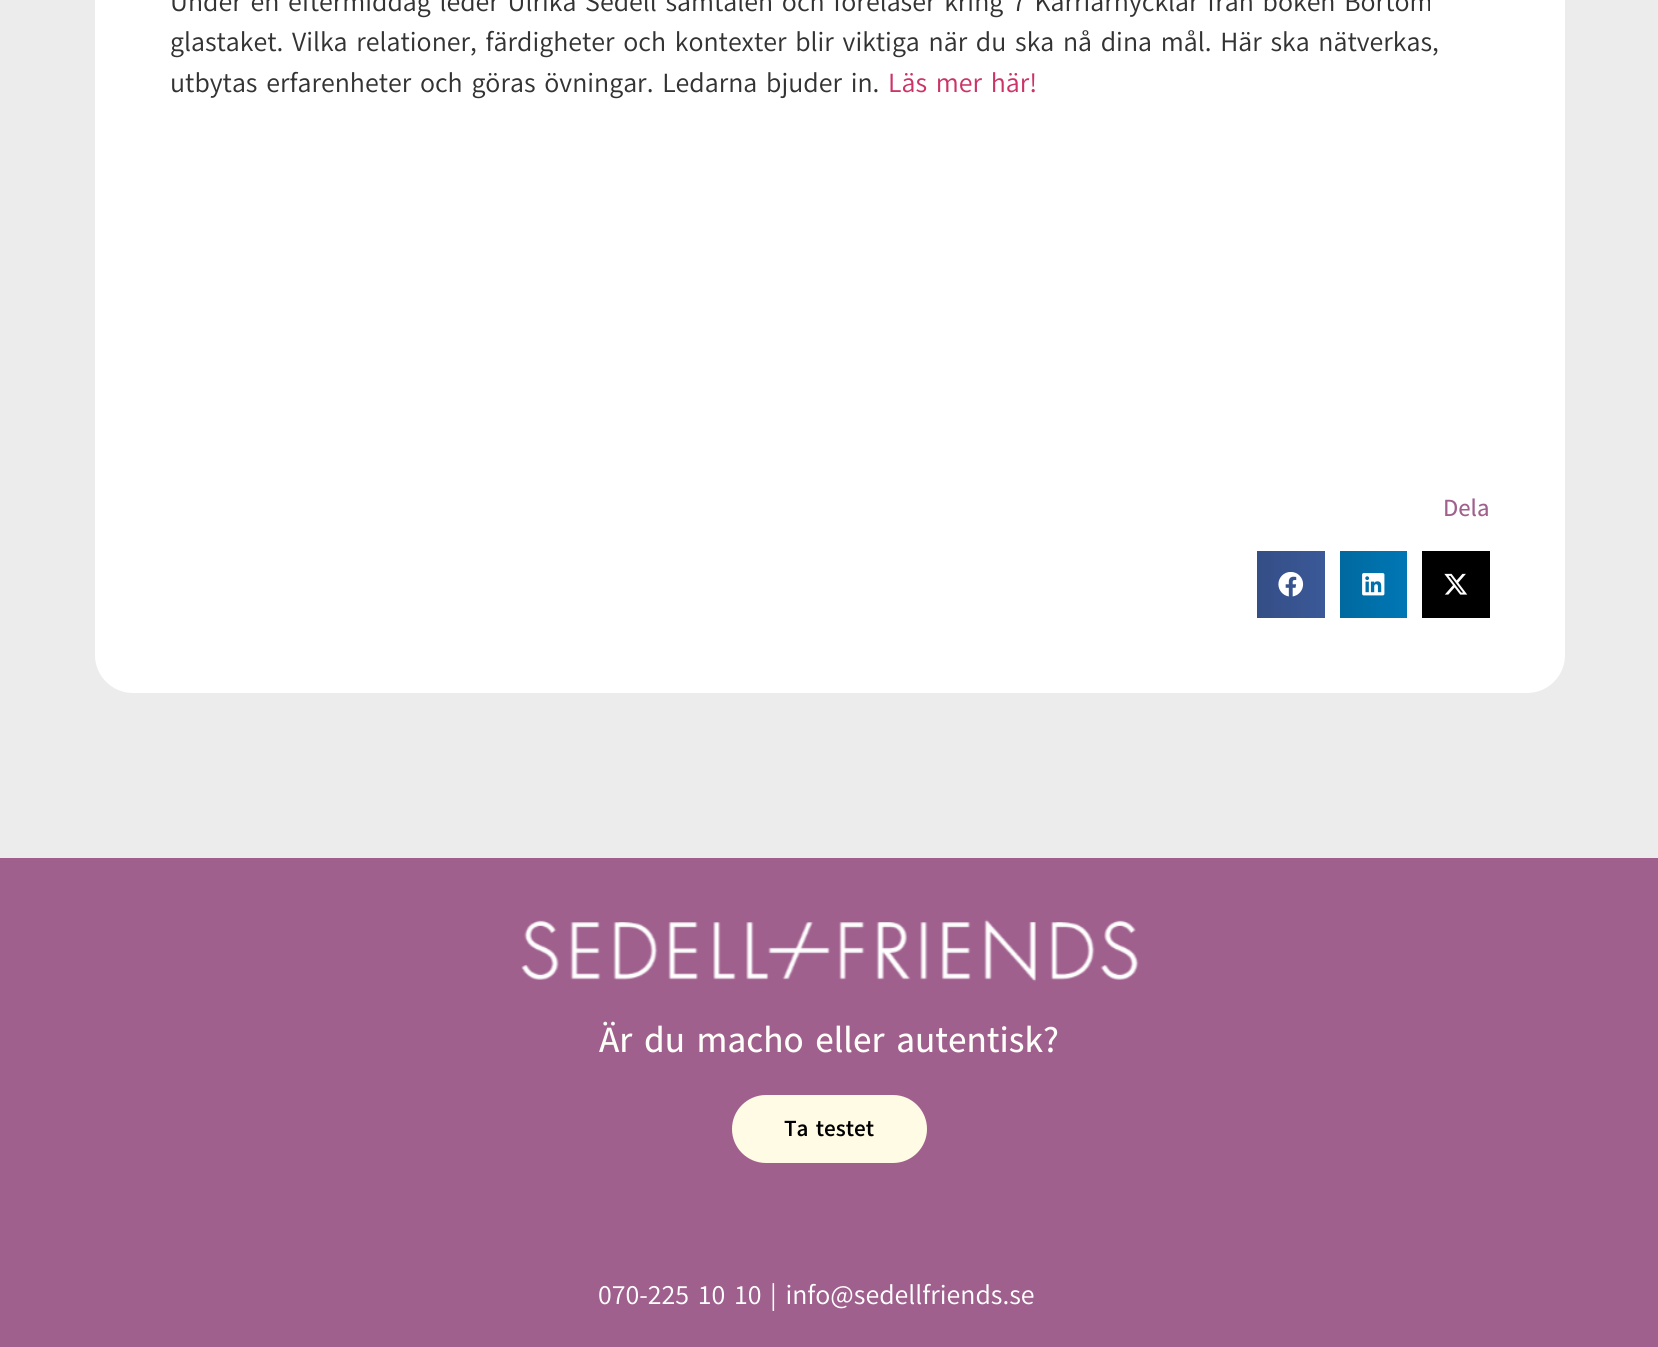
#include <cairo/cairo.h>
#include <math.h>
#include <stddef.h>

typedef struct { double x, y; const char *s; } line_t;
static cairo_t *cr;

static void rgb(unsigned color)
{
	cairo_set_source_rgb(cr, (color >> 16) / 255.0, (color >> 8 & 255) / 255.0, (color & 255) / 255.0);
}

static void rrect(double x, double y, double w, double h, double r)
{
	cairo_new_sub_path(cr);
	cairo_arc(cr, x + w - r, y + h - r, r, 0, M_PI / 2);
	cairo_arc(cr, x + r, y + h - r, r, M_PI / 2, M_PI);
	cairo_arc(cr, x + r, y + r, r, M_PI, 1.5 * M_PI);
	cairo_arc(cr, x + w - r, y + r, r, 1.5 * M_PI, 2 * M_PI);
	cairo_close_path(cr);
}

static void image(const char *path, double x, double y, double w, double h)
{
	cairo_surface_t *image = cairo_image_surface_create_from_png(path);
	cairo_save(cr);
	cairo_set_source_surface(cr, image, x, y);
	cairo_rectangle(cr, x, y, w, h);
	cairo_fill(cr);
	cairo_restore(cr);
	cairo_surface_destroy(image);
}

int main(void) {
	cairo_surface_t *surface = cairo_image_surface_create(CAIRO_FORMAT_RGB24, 1658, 1347);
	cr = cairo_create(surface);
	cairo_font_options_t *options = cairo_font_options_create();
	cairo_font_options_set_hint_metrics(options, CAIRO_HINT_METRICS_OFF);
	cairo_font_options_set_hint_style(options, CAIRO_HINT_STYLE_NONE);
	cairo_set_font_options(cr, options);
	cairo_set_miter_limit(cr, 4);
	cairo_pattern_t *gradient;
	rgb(0xececec);
	cairo_paint(cr);
	rgb(0xffffff);
	rrect(95, -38, 1470, 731, 38);
	cairo_fill(cr);
	gradient = cairo_pattern_create_linear(1257, 584, 1325, 584);
	cairo_pattern_add_color_stop_rgba(gradient, 0, 0.204, 0.306, 0.525, 1);
	cairo_pattern_add_color_stop_rgba(gradient, 1, 0.231, 0.349, 0.596, 1);
	cairo_set_source(cr, gradient);
	cairo_pattern_destroy(gradient);
	cairo_rectangle(cr, 1257, 551, 68, 67);
	cairo_fill(cr);
	image("img/1.png", 1278, 572, 26, 25);
	gradient = cairo_pattern_create_linear(1340, 584, 1407, 584);
	cairo_pattern_add_color_stop_rgba(gradient, 0, 0, 0.412, 0.624, 1);
	cairo_pattern_add_color_stop_rgba(gradient, 1, 0, 0.467, 0.71, 1);
	cairo_set_source(cr, gradient);
	cairo_pattern_destroy(gradient);
	cairo_rectangle(cr, 1340, 551, 67, 67);
	cairo_fill(cr);
	image("img/2.png", 1362, 573, 23, 23);
	rgb(0x000000);
	cairo_rectangle(cr, 1422, 551, 68, 67);
	cairo_fill(cr);
	image("img/3.png", 1444, 573, 24, 22);
	rgb(0xa0608e);
	cairo_rectangle(cr, 0, 858, 1658, 489);
	cairo_fill(cr);
	image("img/4.png", 521, 919, 618, 63);
	rgb(0xfffbe4);
	rrect(732, 1095, 195, 68, 34);
	cairo_fill(cr);
	cairo_select_font_face(cr, "Akatab", CAIRO_FONT_SLANT_NORMAL, CAIRO_FONT_WEIGHT_NORMAL);
	cairo_set_font_size(cr, 27);
	rgb(0x333333);
	{
		static const line_t items[] = {
			{170, 11, "Under en eftermiddag leder Ulrika Sedell samtalen och föreläser kring 7 Karriärnycklar från boken Bortom"},
			{170, 51, "glastaket. Vilka relationer, färdigheter och kontexter blir viktiga när du ska nå dina mål. Här ska nätverkas,"},
			{170, 92, "utbytas erfarenheter och göras övningar. Ledarna bjuder in."},
		};
		for (size_t i = 0; i < sizeof items / sizeof *items; i++) {
			cairo_move_to(cr, items[i].x, items[i].y);
			cairo_show_text(cr, items[i].s);
		}
	}
	rgb(0xcc3366);
	cairo_move_to(cr, 888, 92);
	cairo_show_text(cr, "Läs mer här!");
	cairo_select_font_face(cr, "Akatab Medium", CAIRO_FONT_SLANT_NORMAL, CAIRO_FONT_WEIGHT_NORMAL);
	cairo_set_font_size(cr, 24);
	rgb(0xa0608e);
	cairo_move_to(cr, 1443, 516);
	cairo_show_text(cr, "Dela");
	cairo_set_font_size(cr, 36);
	rgb(0xfffff9);
	cairo_move_to(cr, 599, 1052);
	cairo_show_text(cr, "Är du macho eller autentisk?");
	cairo_select_font_face(cr, "Akatab", CAIRO_FONT_SLANT_NORMAL, CAIRO_FONT_WEIGHT_BOLD);
	cairo_set_font_size(cr, 22.5);
	rgb(0x000000);
	cairo_move_to(cr, 784, 1136);
	cairo_show_text(cr, "Ta testet");
	cairo_select_font_face(cr, "Akatab", CAIRO_FONT_SLANT_NORMAL, CAIRO_FONT_WEIGHT_NORMAL);
	cairo_set_font_size(cr, 27);
	rgb(0xffffff);
	cairo_move_to(cr, 598, 1304);
	cairo_show_text(cr, "070-225 10 10 | info@sedellfriends.se");
	cairo_surface_write_to_png(surface, "page.png");
	cairo_font_options_destroy(options);
	cairo_destroy(cr);
	cairo_surface_destroy(surface);
	return 0;
}
